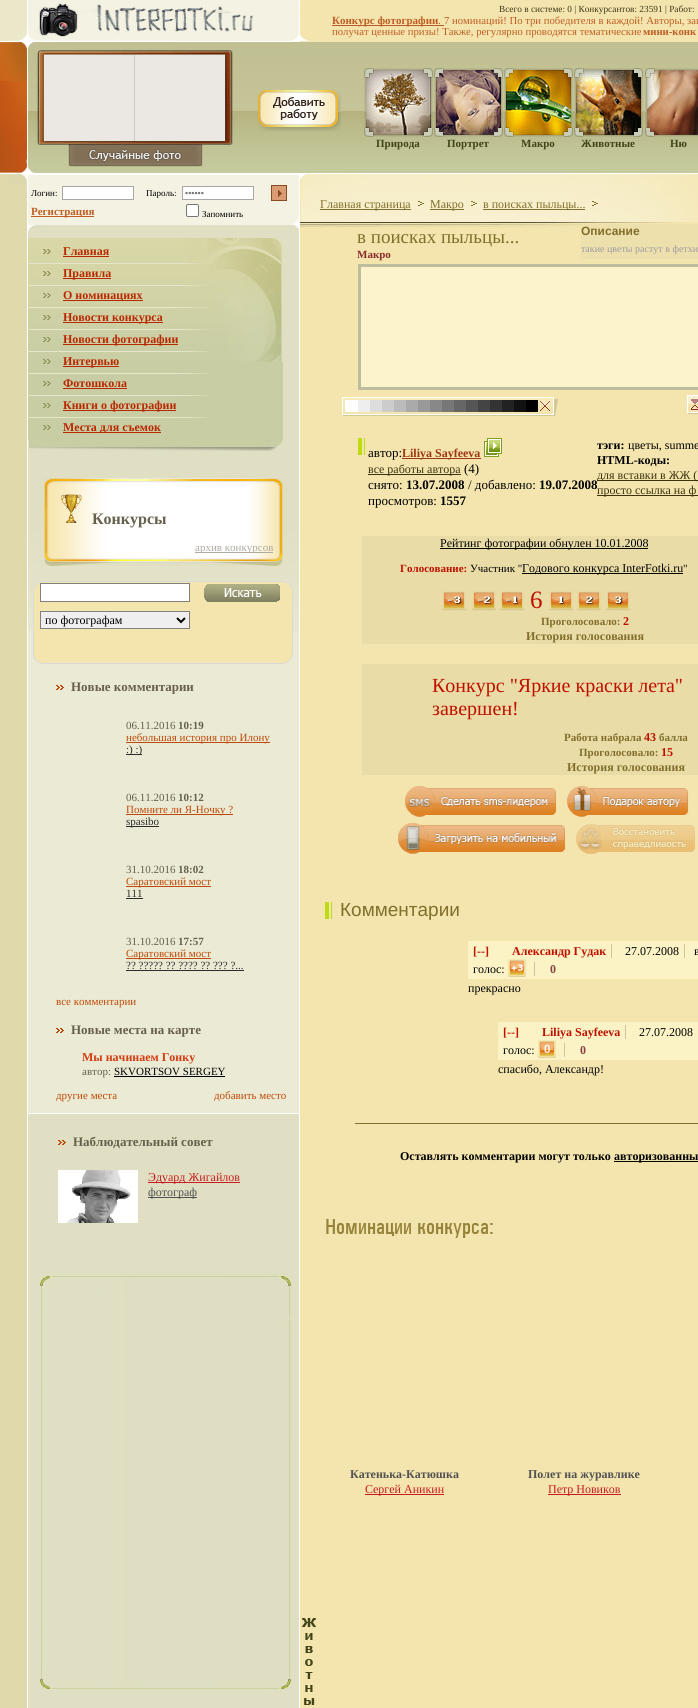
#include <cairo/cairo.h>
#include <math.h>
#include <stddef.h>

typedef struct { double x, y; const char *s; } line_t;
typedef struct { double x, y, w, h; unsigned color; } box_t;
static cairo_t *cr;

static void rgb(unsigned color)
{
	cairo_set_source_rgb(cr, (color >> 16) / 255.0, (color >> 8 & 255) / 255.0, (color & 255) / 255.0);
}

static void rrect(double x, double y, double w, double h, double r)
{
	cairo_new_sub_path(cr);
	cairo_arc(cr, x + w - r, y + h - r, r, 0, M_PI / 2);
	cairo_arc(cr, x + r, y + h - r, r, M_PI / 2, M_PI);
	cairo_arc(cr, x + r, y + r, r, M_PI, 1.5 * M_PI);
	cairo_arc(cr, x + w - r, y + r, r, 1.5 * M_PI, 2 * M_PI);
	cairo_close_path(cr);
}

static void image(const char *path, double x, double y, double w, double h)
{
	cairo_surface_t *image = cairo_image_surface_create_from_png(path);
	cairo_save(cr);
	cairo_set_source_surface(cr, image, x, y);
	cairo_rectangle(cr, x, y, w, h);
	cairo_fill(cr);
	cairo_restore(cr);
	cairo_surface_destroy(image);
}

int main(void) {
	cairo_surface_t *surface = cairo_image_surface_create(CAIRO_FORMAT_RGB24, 698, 1708);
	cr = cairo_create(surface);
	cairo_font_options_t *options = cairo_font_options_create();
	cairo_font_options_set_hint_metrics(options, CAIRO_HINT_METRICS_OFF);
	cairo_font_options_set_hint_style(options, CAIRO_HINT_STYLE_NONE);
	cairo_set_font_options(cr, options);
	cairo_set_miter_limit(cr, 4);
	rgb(0xffffff);
	cairo_paint(cr);
	rgb(0xe0d9ab);
	cairo_rectangle(cr, 0, 174, 27, 1534);
	cairo_fill(cr);
	rgb(0xebe8ca);
	cairo_rectangle(cr, 0, 0, 27, 41);
	cairo_fill(cr);
	image("img/1.png", 13, 28, 14, 13);
	image("img/2.png", 0, 42, 27, 131);
	image("img/3.png", 9, 174, 18, 11);
	image("img/4.png", 28, 0, 271, 41);
	rgb(0xf4f2e3);
	cairo_rectangle(cr, 28, 175, 271, 50);
	cairo_fill(cr);
	image("img/5.png", 290, 217, 9, 8);
	rgb(0xffffff);
	cairo_rectangle(cr, 62.5, 186.5, 71, 13);
	cairo_fill_preserve(cr);
	rgb(0xa8a7a5);
	cairo_set_line_width(cr, 1);
	cairo_stroke(cr);
	rgb(0xffffff);
	cairo_rectangle(cr, 182.5, 186.5, 71, 13);
	cairo_fill_preserve(cr);
	rgb(0xa8a7a5);
	cairo_stroke(cr);
	image("img/6.png", 271, 185, 16, 16);
	rgb(0xbe5e24);
	cairo_rectangle(cr, 31, 216, 63, 1);
	cairo_fill(cr);
	rgb(0xffffff);
	rrect(186.5, 204.5, 12, 12, 1.5);
	cairo_fill_preserve(cr);
	rgb(0x767676);
	cairo_stroke(cr);
	rgb(0xebead4);
	cairo_rectangle(cr, 28, 631, 271, 482);
	cairo_fill(cr);
	image("img/7.png", 28, 225, 271, 406);
	image("img/8.png", 293, 225, 6, 8);
	image("img/9.png", 28, 225, 15, 8);
	rgb(0xc8cda4);
	cairo_rectangle(cr, 28, 362, 255, 78);
	cairo_fill(cr);
	image("img/10.png", 28, 237, 255, 125);
	image("img/11.png", 28, 263, 177, 1);
	image("img/12.png", 43, 249, 8, 5);
	rgb(0xb92801);
	cairo_rectangle(cr, 63, 256, 46, 1);
	cairo_fill(cr);
	image("img/13.png", 28, 285, 179, 1);
	image("img/14.png", 43, 271, 8, 5);
	cairo_rectangle(cr, 63, 278, 48, 1);
	cairo_fill(cr);
	image("img/13.png", 28, 307, 179, 1);
	image("img/15.png", 43, 293, 8, 5);
	cairo_rectangle(cr, 63, 300, 80, 1);
	cairo_fill(cr);
	image("img/13.png", 28, 329, 179, 1);
	image("img/16.png", 43, 315, 8, 5);
	cairo_rectangle(cr, 63, 322, 100, 1);
	cairo_fill(cr);
	image("img/13.png", 28, 351, 179, 1);
	image("img/17.png", 43, 337, 8, 5);
	cairo_rectangle(cr, 63, 344, 115, 1);
	cairo_fill(cr);
	image("img/13.png", 28, 373, 179, 1);
	image("img/18.png", 43, 359, 8, 5);
	cairo_rectangle(cr, 63, 366, 56, 1);
	cairo_fill(cr);
	image("img/13.png", 28, 395, 179, 1);
	image("img/19.png", 43, 381, 8, 5);
	cairo_rectangle(cr, 63, 388, 64, 1);
	cairo_fill(cr);
	image("img/13.png", 28, 417, 179, 1);
	image("img/19.png", 43, 403, 8, 5);
	cairo_rectangle(cr, 63, 410, 113, 1);
	cairo_fill(cr);
	image("img/19.png", 43, 425, 8, 5);
	cairo_rectangle(cr, 63, 432, 98, 1);
	cairo_fill(cr);
	image("img/20.png", 29, 440, 254, 11);
	image("img/21.png", 44, 478, 239, 13);
	image("img/22.png", 44, 491, 38, 50);
	image("img/23.png", 45, 491, 37, 33);
	image("img/24.png", 82, 491, 191, 50);
	image("img/25.png", 273, 491, 10, 50);
	image("img/26.png", 44, 541, 38, 12);
	image("img/27.png", 82, 541, 191, 12);
	rgb(0xaeaba0);
	cairo_rectangle(cr, 195, 552, 78, 1);
	cairo_fill(cr);
	image("img/28.png", 273, 541, 10, 12);
	image("img/30.png", 33, 581, 260, 83);
	rgb(0xffffff);
	cairo_rectangle(cr, 40.5, 583.5, 149, 18);
	cairo_fill_preserve(cr);
	rgb(0x808080);
	cairo_stroke(cr);
	image("img/31.png", 204, 584, 76, 18);
	rgb(0xefefef);
	cairo_rectangle(cr, 40.5, 611.5, 149, 17);
	cairo_fill_preserve(cr);
	rgb(0x808080);
	cairo_stroke(cr);
	cairo_new_path(cr);
	cairo_move_to(cr, 177, 618);
	cairo_line_to(cr, 181, 622);
	cairo_line_to(cr, 185, 618);
	rgb(0x000000);
	cairo_set_line_width(cr, 2);
	cairo_stroke(cr);
	image("img/32.png", 56, 685, 8, 5);
	{
		static const box_t items[] = {
			{126, 742, 144, 1, 0xbe4a0a},
			{126, 754, 16, 1, 0x2d2d2d},
			{126, 814, 107, 1, 0xbe4a0a},
			{126, 826, 33, 1, 0x2d2d2d},
			{126, 886, 85, 1, 0xbe4a0a},
			{126, 898, 17, 1, 0x2d2d2d},
			{126, 958, 85, 1, 0xbe4a0a},
			{126, 970, 118, 1, 0x2d2d2d},
		};
		for (size_t i = 0; i < sizeof items / sizeof *items; i++) {
			rgb(items[i].color);
			cairo_rectangle(cr, items[i].x, items[i].y, items[i].w, items[i].h);
			cairo_fill(cr);
		}
	}
	image("img/32.png", 56, 1028, 8, 5);
	rgb(0x000000);
	cairo_rectangle(cr, 114, 1076, 111, 1);
	cairo_fill(cr);
	rgb(0xe0dfc3);
	cairo_rectangle(cr, 28, 1114, 271, 594);
	cairo_fill(cr);
	image("img/33.png", 58, 1140, 8, 5);
	image("img/34.png", 58, 1170, 80, 53);
	rgb(0xc91d1d);
	cairo_rectangle(cr, 148, 1182, 92, 1);
	cairo_fill(cr);
	rgb(0x525252);
	cairo_rectangle(cr, 148, 1197, 49, 1);
	cairo_fill(cr);
	image("img/35.png", 40, 1273, 253, 416);
	rgb(0xf4e5ae);
	cairo_rectangle(cr, 300, 0, 398, 1708);
	cairo_fill(cr);
	image("img/36.png", 300, 34, 10, 7);
	rgb(0xbd5c29);
	cairo_rectangle(cr, 332, 25, 106, 1);
	cairo_fill(cr);
	image("img/37.png", 28, 42, 8, 131);
	image("img/38.png", 36, 42, 198, 131);
	image("img/39.png", 36, 49, 197, 118);
	image("img/40.png", 234, 42, 130, 131);
	image("img/41.png", 258, 90, 83, 41);
	image("img/42.png", 364, 42, 334, 131);
	image("img/43.png", 364, 68, 69, 69);
	image("img/44.png", 434, 68, 69, 69);
	image("img/45.png", 504, 68, 69, 69);
	image("img/46.png", 574, 68, 69, 69);
	image("img/47.png", 645, 68, 53, 69);
	rgb(0xffffff);
	cairo_rectangle(cr, 300, 173, 398, 1);
	cairo_fill(cr);
	image("img/48.png", 300, 174, 398, 53);
	rgb(0x816f2c);
	cairo_rectangle(cr, 320, 209, 91, 1);
	cairo_fill(cr);
	image("img/49.png", 418, 201, 6, 5);
	cairo_rectangle(cr, 430, 209, 34, 1);
	cairo_fill(cr);
	image("img/50.png", 471, 201, 6, 5);
	cairo_rectangle(cr, 483, 209, 102, 1);
	cairo_fill(cr);
	image("img/51.png", 592, 201, 6, 5);
	rgb(0xeee0ad);
	cairo_rectangle(cr, 581, 224, 117, 35);
	cairo_fill(cr);
	cairo_rectangle(cr, 359.5, 265.5, 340, 123);
	rgb(0xbcbd9d);
	cairo_set_line_width(cr, 3);
	cairo_stroke(cr);
	rgb(0xfcf2cb);
	cairo_rectangle(cr, 361, 267, 337, 120);
	cairo_fill(cr);
	image("img/52.png", 342, 397, 216, 19);
	{
		static const box_t items[] = {
			{357, 400, 1, 12, 0xffffff},
			{358, 400, 12, 12, 0xeeeeee},
			{370, 400, 12, 12, 0xdddddd},
			{382, 400, 12, 12, 0xcccccc},
			{394, 400, 12, 12, 0xbbbbbb},
			{406, 400, 12, 12, 0xaaaaaa},
			{418, 400, 12, 12, 0x999999},
			{430, 400, 12, 12, 0x888888},
			{442, 400, 12, 12, 0x777777},
			{454, 400, 12, 12, 0x666666},
			{466, 400, 12, 12, 0x555555},
			{478, 400, 12, 12, 0x444444},
			{490, 400, 12, 12, 0x333333},
			{502, 400, 12, 12, 0x222222},
			{514, 400, 12, 12, 0x111111},
			{526, 400, 12, 12, 0x000000},
		};
		for (size_t i = 0; i < sizeof items / sizeof *items; i++) {
			rgb(items[i].color);
			cairo_rectangle(cr, items[i].x, items[i].y, items[i].w, items[i].h);
			cairo_fill(cr);
		}
	}
	image("img/53.png", 687, 395, 11, 19);
	image("img/54.png", 358, 438, 7, 17);
	rgb(0x9d3710);
	cairo_rectangle(cr, 402, 458, 79, 1);
	cairo_fill(cr);
	image("img/55.png", 484, 438, 18, 19);
	{
		static const box_t items[] = {
			{368, 474, 93, 1, 0x3d330e},
			{597, 480, 101, 1, 0x3d330e},
			{597, 495, 101, 1, 0x3d330e},
			{362, 536, 336, 108, 0xe9dca7},
			{440, 548, 208, 1, 0x000000},
			{522, 573, 161, 1, 0x000000},
		};
		for (size_t i = 0; i < sizeof items / sizeof *items; i++) {
			rgb(items[i].color);
			cairo_rectangle(cr, items[i].x, items[i].y, items[i].w, items[i].h);
			cairo_fill(cr);
		}
	}
	image("img/56.png", 442, 591, 24, 20);
	image("img/57.png", 472, 591, 24, 20);
	image("img/58.png", 500, 591, 24, 20);
	image("img/59.png", 549, 591, 24, 20);
	image("img/60.png", 577, 591, 24, 20);
	image("img/61.png", 606, 591, 24, 20);
	rgb(0xe9dca7);
	cairo_rectangle(cr, 362, 664, 336, 111);
	cairo_fill(cr);
	image("img/62.png", 405, 786, 152, 31);
	image("img/63.png", 567, 786, 122, 31);
	image("img/64.png", 398, 823, 168, 31);
	image("img/65.png", 576, 824, 119, 30);
	image("img/54.png", 325, 902, 7, 17);
	{
		static const box_t items[] = {
			{355, 1123, 343, 1, 0x816f2c},
			{468, 941, 230, 38, 0xfbf3c6},
			{611, 944, 1, 14, 0xccc5a1},
			{684, 944, 1, 14, 0xccc5a1},
			{534, 962, 1, 14, 0xccc5a1},
		};
		for (size_t i = 0; i < sizeof items / sizeof *items; i++) {
			rgb(items[i].color);
			cairo_rectangle(cr, items[i].x, items[i].y, items[i].w, items[i].h);
			cairo_fill(cr);
		}
	}
	image("img/66.png", 508, 959, 18, 18);
	{
		static const box_t items[] = {
			{498, 1022, 200, 38, 0xfbf3c6},
			{625, 1025, 1, 14, 0xccc5a1},
			{564, 1043, 1, 14, 0xccc5a1},
		};
		for (size_t i = 0; i < sizeof items / sizeof *items; i++) {
			rgb(items[i].color);
			cairo_rectangle(cr, items[i].x, items[i].y, items[i].w, items[i].h);
			cairo_fill(cr);
		}
	}
	image("img/67.png", 538, 1040, 18, 18);
	rgb(0x000000);
	cairo_rectangle(cr, 614, 1161, 84, 1);
	cairo_fill(cr);
	image("img/68.png", 326, 1219, 167, 22);
	rgb(0xc91d1d);
	cairo_rectangle(cr, 365, 1494, 79, 1);
	cairo_fill(cr);
	cairo_rectangle(cr, 548, 1494, 73, 1);
	cairo_fill(cr);
	image("img/69.png", 301, 1618, 15, 87);
	cairo_select_font_face(cr, "Liberation Serif", CAIRO_FONT_SLANT_NORMAL, CAIRO_FONT_WEIGHT_NORMAL);
	cairo_set_font_size(cr, 9);
	rgb(0x000000);
	cairo_move_to(cr, 31, 196);
	cairo_show_text(cr, "Логин:");
	cairo_move_to(cr, 146, 196);
	cairo_show_text(cr, "Пароль:");
	cairo_select_font_face(cr, "Liberation Sans", CAIRO_FONT_SLANT_NORMAL, CAIRO_FONT_WEIGHT_NORMAL);
	rgb(0x767676);
	cairo_move_to(cr, 185, 196);
	cairo_show_text(cr, "••••••");
	cairo_select_font_face(cr, "Liberation Serif", CAIRO_FONT_SLANT_NORMAL, CAIRO_FONT_WEIGHT_BOLD);
	cairo_set_font_size(cr, 11);
	rgb(0xbe5e24);
	cairo_move_to(cr, 31, 215);
	cairo_show_text(cr, "Регистрация");
	cairo_select_font_face(cr, "Liberation Serif", CAIRO_FONT_SLANT_NORMAL, CAIRO_FONT_WEIGHT_NORMAL);
	cairo_set_font_size(cr, 9);
	rgb(0x000000);
	cairo_move_to(cr, 202, 217);
	cairo_show_text(cr, "Запомнить");
	cairo_select_font_face(cr, "Liberation Serif", CAIRO_FONT_SLANT_NORMAL, CAIRO_FONT_WEIGHT_BOLD);
	cairo_set_font_size(cr, 12);
	rgb(0xb92801);
	{
		static const line_t items[] = {
			{63, 255, "Главная"},
			{63, 277, "Правила"},
			{63, 299, "О номинациях"},
			{63, 321, "Новости конкурса"},
			{63, 343, "Новости фотографии"},
			{63, 365, "Интервью"},
			{63, 387, "Фотошкола"},
			{63, 409, "Книги о фотографии"},
			{63, 431, "Места для съемок"},
		};
		for (size_t i = 0; i < sizeof items / sizeof *items; i++) {
			cairo_move_to(cr, items[i].x, items[i].y);
			cairo_show_text(cr, items[i].s);
		}
	}
	cairo_set_font_size(cr, 16);
	rgb(0x66604c);
	cairo_move_to(cr, 92, 524);
	cairo_show_text(cr, "Конкурсы");
	cairo_select_font_face(cr, "Liberation Serif", CAIRO_FONT_SLANT_NORMAL, CAIRO_FONT_WEIGHT_NORMAL);
	cairo_set_font_size(cr, 11);
	rgb(0xaeaba0);
	cairo_move_to(cr, 195, 551);
	cairo_show_text(cr, "архив конкурсов");
	image("img/29.png", 44, 553, 239, 13);
	cairo_set_font_size(cr, 12);
	rgb(0x000000);
	cairo_move_to(cr, 45, 624);
	cairo_show_text(cr, "по фотографам");
	cairo_select_font_face(cr, "Liberation Serif", CAIRO_FONT_SLANT_NORMAL, CAIRO_FONT_WEIGHT_BOLD);
	cairo_set_font_size(cr, 13);
	rgb(0x66604c);
	cairo_move_to(cr, 71, 691);
	cairo_show_text(cr, "Новые комментарии");
	cairo_select_font_face(cr, "Liberation Serif", CAIRO_FONT_SLANT_NORMAL, CAIRO_FONT_WEIGHT_NORMAL);
	cairo_set_font_size(cr, 11);
	cairo_move_to(cr, 126, 729);
	cairo_show_text(cr, "06.11.2016");
	cairo_select_font_face(cr, "Liberation Serif", CAIRO_FONT_SLANT_NORMAL, CAIRO_FONT_WEIGHT_BOLD);
	cairo_move_to(cr, 178, 729);
	cairo_show_text(cr, "10:19");
	cairo_select_font_face(cr, "Liberation Serif", CAIRO_FONT_SLANT_NORMAL, CAIRO_FONT_WEIGHT_NORMAL);
	rgb(0xbe4a0a);
	cairo_move_to(cr, 126, 741);
	cairo_show_text(cr, "небольшая история про Илону");
	rgb(0x2d2d2d);
	cairo_move_to(cr, 126, 753);
	cairo_show_text(cr, ":) :)");
	rgb(0x66604c);
	cairo_move_to(cr, 126, 801);
	cairo_show_text(cr, "06.11.2016");
	cairo_select_font_face(cr, "Liberation Serif", CAIRO_FONT_SLANT_NORMAL, CAIRO_FONT_WEIGHT_BOLD);
	cairo_move_to(cr, 178, 801);
	cairo_show_text(cr, "10:12");
	cairo_select_font_face(cr, "Liberation Serif", CAIRO_FONT_SLANT_NORMAL, CAIRO_FONT_WEIGHT_NORMAL);
	rgb(0xbe4a0a);
	cairo_move_to(cr, 126, 813);
	cairo_show_text(cr, "Помните ли Я-Ночку ?");
	rgb(0x2d2d2d);
	cairo_move_to(cr, 126, 825);
	cairo_show_text(cr, "spasibo");
	rgb(0x66604c);
	cairo_move_to(cr, 126, 873);
	cairo_show_text(cr, "31.10.2016");
	cairo_select_font_face(cr, "Liberation Serif", CAIRO_FONT_SLANT_NORMAL, CAIRO_FONT_WEIGHT_BOLD);
	cairo_move_to(cr, 178, 873);
	cairo_show_text(cr, "18:02");
	cairo_select_font_face(cr, "Liberation Serif", CAIRO_FONT_SLANT_NORMAL, CAIRO_FONT_WEIGHT_NORMAL);
	rgb(0xbe4a0a);
	cairo_move_to(cr, 126, 885);
	cairo_show_text(cr, "Саратовский мост");
	rgb(0x2d2d2d);
	cairo_move_to(cr, 126, 897);
	cairo_show_text(cr, "111");
	rgb(0x66604c);
	cairo_move_to(cr, 126, 945);
	cairo_show_text(cr, "31.10.2016");
	cairo_select_font_face(cr, "Liberation Serif", CAIRO_FONT_SLANT_NORMAL, CAIRO_FONT_WEIGHT_BOLD);
	cairo_move_to(cr, 178, 945);
	cairo_show_text(cr, "17:57");
	cairo_select_font_face(cr, "Liberation Serif", CAIRO_FONT_SLANT_NORMAL, CAIRO_FONT_WEIGHT_NORMAL);
	rgb(0xbe4a0a);
	cairo_move_to(cr, 126, 957);
	cairo_show_text(cr, "Саратовский мост");
	rgb(0x2d2d2d);
	cairo_move_to(cr, 126, 969);
	cairo_show_text(cr, "?\077 ?\077?\077? ?\077 ?\077?\077 ?\077 ?\077? ?...");
	rgb(0xbe4a0a);
	cairo_move_to(cr, 56, 1005);
	cairo_show_text(cr, "все комментарии");
	cairo_select_font_face(cr, "Liberation Serif", CAIRO_FONT_SLANT_NORMAL, CAIRO_FONT_WEIGHT_BOLD);
	cairo_set_font_size(cr, 13);
	rgb(0x66604c);
	cairo_move_to(cr, 71, 1034);
	cairo_show_text(cr, "Новые места на карте");
	cairo_set_font_size(cr, 12);
	rgb(0xd43b11);
	cairo_move_to(cr, 82, 1061);
	cairo_show_text(cr, "Мы начинаем Гонку");
	cairo_select_font_face(cr, "Liberation Serif", CAIRO_FONT_SLANT_NORMAL, CAIRO_FONT_WEIGHT_NORMAL);
	cairo_set_font_size(cr, 11);
	rgb(0x66604c);
	cairo_move_to(cr, 82, 1075);
	cairo_show_text(cr, "автор:");
	rgb(0x000000);
	cairo_move_to(cr, 114, 1075);
	cairo_show_text(cr, "SKVORTSOV SERGEY");
	rgb(0xbe4a0a);
	cairo_move_to(cr, 56, 1099);
	cairo_show_text(cr, "другие места");
	cairo_move_to(cr, 214, 1099);
	cairo_show_text(cr, "добавить место");
	cairo_select_font_face(cr, "Liberation Serif", CAIRO_FONT_SLANT_NORMAL, CAIRO_FONT_WEIGHT_BOLD);
	cairo_set_font_size(cr, 13);
	rgb(0x66604c);
	cairo_move_to(cr, 73, 1146);
	cairo_show_text(cr, "Наблюдательный совет");
	cairo_select_font_face(cr, "Liberation Serif", CAIRO_FONT_SLANT_NORMAL, CAIRO_FONT_WEIGHT_NORMAL);
	cairo_set_font_size(cr, 12);
	rgb(0xc91d1d);
	cairo_move_to(cr, 148, 1181);
	cairo_show_text(cr, "Эдуард Жигайлов");
	rgb(0x525252);
	cairo_move_to(cr, 148, 1196);
	cairo_show_text(cr, "фотограф");
	cairo_set_font_size(cr, 9.3);
	rgb(0x3d3718);
	cairo_move_to(cr, 499, 12);
	cairo_show_text(cr, "Всего в системе: 0 | Конкурсантов: 23591 | Работ:");
	cairo_select_font_face(cr, "Liberation Serif", CAIRO_FONT_SLANT_NORMAL, CAIRO_FONT_WEIGHT_BOLD);
	cairo_set_font_size(cr, 11);
	rgb(0xbe5e24);
	cairo_move_to(cr, 332, 24);
	cairo_show_text(cr, "Конкурс фотографии");
	cairo_select_font_face(cr, "Liberation Serif", CAIRO_FONT_SLANT_NORMAL, CAIRO_FONT_WEIGHT_NORMAL);
	cairo_move_to(cr, 438, 24);
	cairo_show_text(cr, ".");
	rgb(0xbd5c29);
	cairo_rectangle(cr, 438, 25, 6, 1);
	cairo_fill(cr);
	cairo_set_font_size(cr, 10.7);
	rgb(0xbe5e24);
	cairo_move_to(cr, 444, 24);
	cairo_show_text(cr, "7 номинаций! По три победителя в каждой! Авторы, зан");
	cairo_move_to(cr, 332, 35);
	cairo_show_text(cr, "получат ценные призы! Также, регулярно проводятся тематические");
	cairo_select_font_face(cr, "Liberation Serif", CAIRO_FONT_SLANT_NORMAL, CAIRO_FONT_WEIGHT_BOLD);
	cairo_move_to(cr, 643, 35);
	cairo_show_text(cr, "мини-конк");
	cairo_set_font_size(cr, 11);
	rgb(0x424517);
	{
		static const line_t items[] = {
			{376, 147, "Природа"},
			{447, 147, "Портрет"},
			{521, 147, "Макро"},
			{581, 147, "Животные"},
			{670, 147, "Ню"},
		};
		for (size_t i = 0; i < sizeof items / sizeof *items; i++) {
			cairo_move_to(cr, items[i].x, items[i].y);
			cairo_show_text(cr, items[i].s);
		}
	}
	cairo_select_font_face(cr, "Liberation Serif", CAIRO_FONT_SLANT_NORMAL, CAIRO_FONT_WEIGHT_NORMAL);
	cairo_set_font_size(cr, 12);
	rgb(0x816f2c);
	{
		static const line_t items[] = {
			{320, 208, "Главная страница"},
			{430, 208, "Макро"},
			{483, 208, "в поисках пыльцы..."},
		};
		for (size_t i = 0; i < sizeof items / sizeof *items; i++) {
			cairo_move_to(cr, items[i].x, items[i].y);
			cairo_show_text(cr, items[i].s);
		}
	}
	cairo_set_font_size(cr, 19);
	cairo_move_to(cr, 357, 243);
	cairo_show_text(cr, "в поисках пыльцы...");
	cairo_select_font_face(cr, "Liberation Serif", CAIRO_FONT_SLANT_NORMAL, CAIRO_FONT_WEIGHT_BOLD);
	cairo_set_font_size(cr, 11);
	rgb(0x8b2c2c);
	cairo_move_to(cr, 357, 258);
	cairo_show_text(cr, "Макро");
	cairo_select_font_face(cr, "Liberation Sans", CAIRO_FONT_SLANT_NORMAL, CAIRO_FONT_WEIGHT_BOLD);
	cairo_set_font_size(cr, 12);
	rgb(0x816f2c);
	cairo_move_to(cr, 581, 235);
	cairo_show_text(cr, "Описание");
	cairo_select_font_face(cr, "Liberation Serif", CAIRO_FONT_SLANT_NORMAL, CAIRO_FONT_WEIGHT_NORMAL);
	cairo_set_font_size(cr, 10);
	rgb(0x9c9ba0);
	cairo_move_to(cr, 581, 252);
	cairo_show_text(cr, "такие цветы растут в фетхи");
	cairo_set_font_size(cr, 13);
	rgb(0x000000);
	cairo_move_to(cr, 368, 457);
	cairo_show_text(cr, "автор:");
	cairo_select_font_face(cr, "Liberation Serif", CAIRO_FONT_SLANT_NORMAL, CAIRO_FONT_WEIGHT_BOLD);
	cairo_set_font_size(cr, 12);
	rgb(0x9d3710);
	cairo_move_to(cr, 402, 457);
	cairo_show_text(cr, "Liliya Sayfeeva");
	cairo_select_font_face(cr, "Liberation Serif", CAIRO_FONT_SLANT_NORMAL, CAIRO_FONT_WEIGHT_NORMAL);
	rgb(0x3d330e);
	cairo_move_to(cr, 368, 473);
	cairo_show_text(cr, "все работы автора");
	cairo_set_font_size(cr, 13);
	rgb(0x000000);
	cairo_move_to(cr, 464, 473);
	cairo_show_text(cr, "(4)");
	cairo_move_to(cr, 368, 489);
	cairo_show_text(cr, "снято:");
	cairo_select_font_face(cr, "Liberation Serif", CAIRO_FONT_SLANT_NORMAL, CAIRO_FONT_WEIGHT_BOLD);
	cairo_move_to(cr, 406, 489);
	cairo_show_text(cr, "13.07.2008");
	cairo_select_font_face(cr, "Liberation Serif", CAIRO_FONT_SLANT_NORMAL, CAIRO_FONT_WEIGHT_NORMAL);
	cairo_move_to(cr, 468, 489);
	cairo_show_text(cr, "/ добавлено:");
	cairo_select_font_face(cr, "Liberation Serif", CAIRO_FONT_SLANT_NORMAL, CAIRO_FONT_WEIGHT_BOLD);
	cairo_move_to(cr, 539, 489);
	cairo_show_text(cr, "19.07.2008");
	cairo_select_font_face(cr, "Liberation Serif", CAIRO_FONT_SLANT_NORMAL, CAIRO_FONT_WEIGHT_NORMAL);
	cairo_move_to(cr, 368, 505);
	cairo_show_text(cr, "просмотров:");
	cairo_select_font_face(cr, "Liberation Serif", CAIRO_FONT_SLANT_NORMAL, CAIRO_FONT_WEIGHT_BOLD);
	cairo_move_to(cr, 440, 505);
	cairo_show_text(cr, "1557");
	cairo_set_font_size(cr, 12);
	cairo_move_to(cr, 597, 449);
	cairo_show_text(cr, "тэги:");
	cairo_select_font_face(cr, "Liberation Serif", CAIRO_FONT_SLANT_NORMAL, CAIRO_FONT_WEIGHT_NORMAL);
	cairo_move_to(cr, 628, 449);
	cairo_show_text(cr, "цветы, summe");
	cairo_select_font_face(cr, "Liberation Serif", CAIRO_FONT_SLANT_NORMAL, CAIRO_FONT_WEIGHT_BOLD);
	cairo_move_to(cr, 597, 464);
	cairo_show_text(cr, "HTML-коды:");
	cairo_select_font_face(cr, "Liberation Serif", CAIRO_FONT_SLANT_NORMAL, CAIRO_FONT_WEIGHT_NORMAL);
	rgb(0x3d330e);
	cairo_move_to(cr, 597, 479);
	cairo_show_text(cr, "для вставки в ЖЖ (");
	cairo_move_to(cr, 597, 494);
	cairo_show_text(cr, "просто ссылка на ф");
	rgb(0x000000);
	cairo_move_to(cr, 440, 547);
	cairo_show_text(cr, "Рейтинг фотографии обнулен 10.01.2008");
	cairo_select_font_face(cr, "Liberation Serif", CAIRO_FONT_SLANT_NORMAL, CAIRO_FONT_WEIGHT_BOLD);
	cairo_set_font_size(cr, 11);
	rgb(0xbe1000);
	cairo_move_to(cr, 400, 572);
	cairo_show_text(cr, "Голосование:");
	cairo_select_font_face(cr, "Liberation Serif", CAIRO_FONT_SLANT_NORMAL, CAIRO_FONT_WEIGHT_NORMAL);
	rgb(0x000000);
	cairo_move_to(cr, 470, 572);
	cairo_show_text(cr, "Участник \"");
	cairo_set_font_size(cr, 12);
	cairo_move_to(cr, 522, 572);
	cairo_show_text(cr, "Годового конкурса InterFotki.ru");
	cairo_set_font_size(cr, 11);
	cairo_move_to(cr, 683, 572);
	cairo_show_text(cr, "\"");
	cairo_set_font_size(cr, 25);
	rgb(0xbe1000);
	cairo_move_to(cr, 530, 608);
	cairo_show_text(cr, "6");
	cairo_select_font_face(cr, "Liberation Serif", CAIRO_FONT_SLANT_NORMAL, CAIRO_FONT_WEIGHT_BOLD);
	cairo_set_font_size(cr, 11);
	rgb(0x816f2c);
	cairo_move_to(cr, 541, 625);
	cairo_show_text(cr, "Проголосовало:");
	cairo_set_font_size(cr, 12);
	rgb(0xbe1000);
	cairo_move_to(cr, 623, 625);
	cairo_show_text(cr, "2");
	rgb(0x816f2c);
	cairo_move_to(cr, 526, 640);
	cairo_show_text(cr, "История голосования");
	cairo_select_font_face(cr, "Liberation Serif", CAIRO_FONT_SLANT_NORMAL, CAIRO_FONT_WEIGHT_NORMAL);
	cairo_set_font_size(cr, 20);
	rgb(0xbe1000);
	cairo_move_to(cr, 432, 692);
	cairo_show_text(cr, "Конкурс \"Яркие краски лета\"");
	cairo_move_to(cr, 432, 715);
	cairo_show_text(cr, "завершен!");
	cairo_select_font_face(cr, "Liberation Serif", CAIRO_FONT_SLANT_NORMAL, CAIRO_FONT_WEIGHT_BOLD);
	cairo_set_font_size(cr, 11);
	rgb(0x816f2c);
	cairo_move_to(cr, 564, 741);
	cairo_show_text(cr, "Работа набрала");
	cairo_set_font_size(cr, 12);
	rgb(0xbe1000);
	cairo_move_to(cr, 644, 741);
	cairo_show_text(cr, "43");
	cairo_set_font_size(cr, 11);
	rgb(0x816f2c);
	cairo_move_to(cr, 659, 741);
	cairo_show_text(cr, "балла");
	cairo_move_to(cr, 579, 756);
	cairo_show_text(cr, "Проголосовало:");
	cairo_set_font_size(cr, 12);
	rgb(0xbe1000);
	cairo_move_to(cr, 661, 756);
	cairo_show_text(cr, "15");
	rgb(0x816f2c);
	cairo_move_to(cr, 567, 771);
	cairo_show_text(cr, "История голосования");
	cairo_select_font_face(cr, "Liberation Sans", CAIRO_FONT_SLANT_NORMAL, CAIRO_FONT_WEIGHT_NORMAL);
	cairo_set_font_size(cr, 19);
	cairo_move_to(cr, 340, 916);
	cairo_show_text(cr, "Комментарии");
	cairo_select_font_face(cr, "Liberation Serif", CAIRO_FONT_SLANT_NORMAL, CAIRO_FONT_WEIGHT_BOLD);
	cairo_set_font_size(cr, 12);
	rgb(0xbe1000);
	cairo_move_to(cr, 473, 955);
	cairo_show_text(cr, "[--]");
	cairo_move_to(cr, 512, 955);
	cairo_show_text(cr, "Александр Гудак");
	cairo_select_font_face(cr, "Liberation Serif", CAIRO_FONT_SLANT_NORMAL, CAIRO_FONT_WEIGHT_NORMAL);
	rgb(0x000000);
	{
		static const line_t items[] = {
			{625, 955, "27.07.2008"},
			{694, 955, "в"},
			{473, 973, "голос:"},
		};
		for (size_t i = 0; i < sizeof items / sizeof *items; i++) {
			cairo_move_to(cr, items[i].x, items[i].y);
			cairo_show_text(cr, items[i].s);
		}
	}
	cairo_select_font_face(cr, "Liberation Serif", CAIRO_FONT_SLANT_NORMAL, CAIRO_FONT_WEIGHT_BOLD);
	rgb(0x864343);
	cairo_move_to(cr, 550, 973);
	cairo_show_text(cr, "0");
	cairo_select_font_face(cr, "Liberation Serif", CAIRO_FONT_SLANT_NORMAL, CAIRO_FONT_WEIGHT_NORMAL);
	rgb(0x000000);
	cairo_move_to(cr, 468, 992);
	cairo_show_text(cr, "прекрасно");
	cairo_select_font_face(cr, "Liberation Serif", CAIRO_FONT_SLANT_NORMAL, CAIRO_FONT_WEIGHT_BOLD);
	rgb(0xbe1000);
	cairo_move_to(cr, 503, 1036);
	cairo_show_text(cr, "[--]");
	cairo_move_to(cr, 542, 1036);
	cairo_show_text(cr, "Liliya Sayfeeva");
	cairo_select_font_face(cr, "Liberation Serif", CAIRO_FONT_SLANT_NORMAL, CAIRO_FONT_WEIGHT_NORMAL);
	rgb(0x000000);
	cairo_move_to(cr, 639, 1036);
	cairo_show_text(cr, "27.07.2008");
	cairo_move_to(cr, 503, 1054);
	cairo_show_text(cr, "голос:");
	cairo_select_font_face(cr, "Liberation Serif", CAIRO_FONT_SLANT_NORMAL, CAIRO_FONT_WEIGHT_BOLD);
	rgb(0x864343);
	cairo_move_to(cr, 580, 1054);
	cairo_show_text(cr, "0");
	cairo_select_font_face(cr, "Liberation Serif", CAIRO_FONT_SLANT_NORMAL, CAIRO_FONT_WEIGHT_NORMAL);
	rgb(0x000000);
	cairo_move_to(cr, 498, 1073);
	cairo_show_text(cr, "спасибо, Александр!");
	cairo_select_font_face(cr, "Liberation Serif", CAIRO_FONT_SLANT_NORMAL, CAIRO_FONT_WEIGHT_BOLD);
	cairo_move_to(cr, 400, 1160);
	cairo_show_text(cr, "Оставлять комментарии могут только");
	cairo_move_to(cr, 614, 1160);
	cairo_show_text(cr, "авторизованны");
	rgb(0x525252);
	cairo_move_to(cr, 350, 1478);
	cairo_show_text(cr, "Катенька-Катюшка");
	cairo_select_font_face(cr, "Liberation Serif", CAIRO_FONT_SLANT_NORMAL, CAIRO_FONT_WEIGHT_NORMAL);
	rgb(0xc91d1d);
	cairo_move_to(cr, 365, 1493);
	cairo_show_text(cr, "Сергей Аникин");
	cairo_select_font_face(cr, "Liberation Serif", CAIRO_FONT_SLANT_NORMAL, CAIRO_FONT_WEIGHT_BOLD);
	rgb(0x525252);
	cairo_move_to(cr, 528, 1478);
	cairo_show_text(cr, "Полет на журавлике");
	cairo_select_font_face(cr, "Liberation Serif", CAIRO_FONT_SLANT_NORMAL, CAIRO_FONT_WEIGHT_NORMAL);
	rgb(0xc91d1d);
	cairo_move_to(cr, 548, 1493);
	cairo_show_text(cr, "Петр Новиков");
	cairo_surface_write_to_png(surface, "page.png");
	cairo_font_options_destroy(options);
	cairo_destroy(cr);
	cairo_surface_destroy(surface);
	return 0;
}
